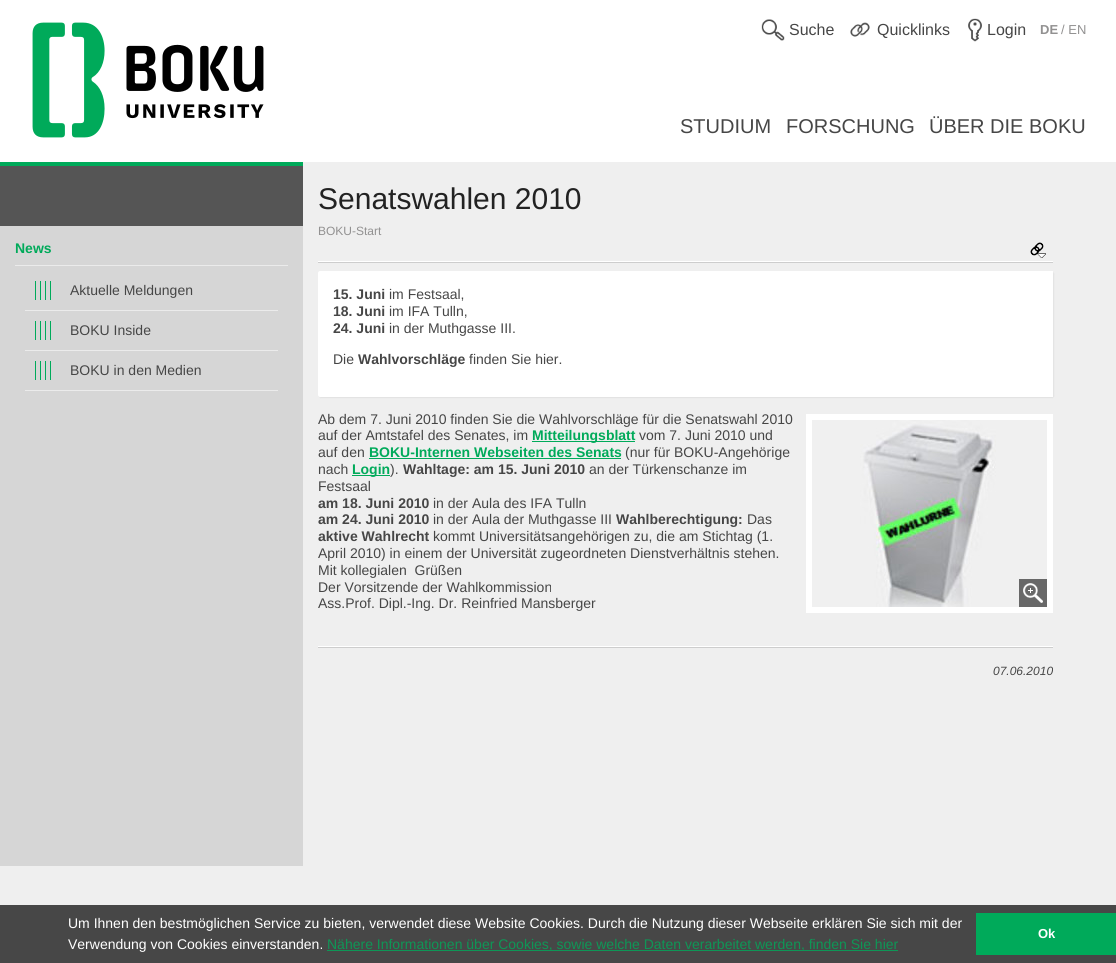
#include <cairo/cairo.h>
#include <math.h>
#include <stddef.h>

typedef struct { double x, y; const char *s; } line_t;
typedef struct { double x, y, w, h; unsigned color; } box_t;
static cairo_t *cr;

static void rgb(unsigned color)
{
	cairo_set_source_rgb(cr, (color >> 16) / 255.0, (color >> 8 & 255) / 255.0, (color & 255) / 255.0);
}

static void rrect(double x, double y, double w, double h, double r)
{
	cairo_new_sub_path(cr);
	cairo_arc(cr, x + w - r, y + h - r, r, 0, M_PI / 2);
	cairo_arc(cr, x + r, y + h - r, r, M_PI / 2, M_PI);
	cairo_arc(cr, x + r, y + r, r, M_PI, 1.5 * M_PI);
	cairo_arc(cr, x + w - r, y + r, r, 1.5 * M_PI, 2 * M_PI);
	cairo_close_path(cr);
}

static void soft_shadow(double x, double y, double w, double h, double r, double blur, double alpha)
{
	cairo_push_group_with_content(cr, CAIRO_CONTENT_ALPHA);
	cairo_set_operator(cr, CAIRO_OPERATOR_SOURCE);
	for (int i = 15; i >= -15 && fmin(w, h) + blur * i / 3 > 0; i -= 2) {
		double e = blur * i / 6;
		cairo_set_source_rgba(cr, 0, 0, 0, alpha * erfc((i - 1) / 8.5) / 2);
		rrect(x - e, y - e, w + 2 * e, h + 2 * e, fmax(0, fmin(r + e + blur * .6, fmin(w, h) / 2 + e)));
		cairo_fill(cr);
	}
	cairo_pattern_t *soft = cairo_pop_group(cr);
	cairo_mask(cr, soft);
	cairo_pattern_destroy(soft);
}

static void image(const char *path, double x, double y, double w, double h)
{
	cairo_surface_t *image = cairo_image_surface_create_from_png(path);
	cairo_save(cr);
	cairo_set_source_surface(cr, image, x, y);
	cairo_rectangle(cr, x, y, w, h);
	cairo_fill(cr);
	cairo_restore(cr);
	cairo_surface_destroy(image);
}

int main(void) {
	cairo_surface_t *surface = cairo_image_surface_create(CAIRO_FORMAT_RGB24, 1116, 963);
	cr = cairo_create(surface);
	cairo_font_options_t *options = cairo_font_options_create();
	cairo_font_options_set_hint_metrics(options, CAIRO_HINT_METRICS_OFF);
	cairo_font_options_set_hint_style(options, CAIRO_HINT_STYLE_NONE);
	cairo_set_font_options(cr, options);
	cairo_set_miter_limit(cr, 4);
	rgb(0xefefef);
	cairo_paint(cr);
	rgb(0xffffff);
	cairo_rectangle(cr, 0, 0, 1116, 162);
	cairo_fill(cr);
	image("img/1.png", 761, 19, 24, 22);
	image("img/2.png", 850, 22, 20, 15);
	image("img/3.png", 968, 18, 14, 24);
	image("img/4.png", 32, 22, 232, 116);
	{
		static const box_t items[] = {
			{0, 226, 303, 640, 0xd6d6d6},
			{0, 162, 303, 4, 0x00aa5a},
			{0, 166, 303, 60, 0x555555},
			{15, 265, 273, 1, 0xebebeb},
			{25, 310, 253, 1, 0xebebeb},
		};
		for (size_t i = 0; i < sizeof items / sizeof *items; i++) {
			rgb(items[i].color);
			cairo_rectangle(cr, items[i].x, items[i].y, items[i].w, items[i].h);
			cairo_fill(cr);
		}
	}
	image("img/5.png", 35, 281, 16, 19);
	cairo_rectangle(cr, 25, 350, 253, 1);
	cairo_fill(cr);
	image("img/5.png", 35, 321, 16, 19);
	cairo_rectangle(cr, 25, 390, 253, 1);
	cairo_fill(cr);
	image("img/5.png", 35, 361, 16, 19);
	image("img/6.png", 1030, 242, 16, 16);
	rgb(0xffffff);
	cairo_rectangle(cr, 318, 261, 735, 1);
	cairo_fill(cr);
	rgb(0xcdcdcd);
	cairo_rectangle(cr, 318, 262, 735, 1);
	cairo_fill(cr);
	rgb(0x000000);
	soft_shadow(319, 272, 735, 126, 2, 0.5, 0.06);
	rgb(0xffffff);
	cairo_new_path(cr);
	cairo_move_to(cr, 320, 271);
	cairo_line_to(cr, 1053, 271);
	cairo_line_to(cr, 1053, 397);
	cairo_line_to(cr, 320, 397);
	cairo_curve_to(cr, 319, 397, 318, 396, 318, 395);
	cairo_line_to(cr, 318, 273);
	cairo_curve_to(cr, 318, 272, 319, 271, 320, 271);
	cairo_close_path(cr);
	cairo_fill(cr);
	{
		static const box_t items[] = {
			{532, 441, 103, 1, 0x00aa5a},
			{369, 458, 252, 1, 0x00aa5a},
			{352, 475, 38, 1, 0x00aa5a},
			{806, 414, 247, 199, 0xffffff},
		};
		for (size_t i = 0; i < sizeof items / sizeof *items; i++) {
			rgb(items[i].color);
			cairo_rectangle(cr, items[i].x, items[i].y, items[i].w, items[i].h);
			cairo_fill(cr);
		}
	}
	image("img/7.png", 812, 420, 235, 187);
	rgb(0x686868);
	cairo_rectangle(cr, 1019, 579, 28, 28);
	cairo_fill(cr);
	image("img/8.png", 1023, 583, 20, 20);
	{
		static const box_t items[] = {
			{318, 646, 735, 1, 0xffffff},
			{318, 647, 735, 1, 0xcdcdcd},
			{0, 905, 1116, 58, 0x474747},
			{327, 950, 571, 1, 0x0e9656},
			{976, 913, 140, 42, 0x00aa5a},
		};
		for (size_t i = 0; i < sizeof items / sizeof *items; i++) {
			rgb(items[i].color);
			cairo_rectangle(cr, items[i].x, items[i].y, items[i].w, items[i].h);
			cairo_fill(cr);
		}
	}
	cairo_select_font_face(cr, "Liberation Sans", CAIRO_FONT_SLANT_NORMAL, CAIRO_FONT_WEIGHT_NORMAL);
	cairo_set_font_size(cr, 16);
	rgb(0x464646);
	{
		static const line_t items[] = {
			{789, 35, "Suche"},
			{877, 35, "Quicklinks"},
			{987, 35, "Login"},
		};
		for (size_t i = 0; i < sizeof items / sizeof *items; i++) {
			cairo_move_to(cr, items[i].x, items[i].y);
			cairo_show_text(cr, items[i].s);
		}
	}
	cairo_select_font_face(cr, "Liberation Sans", CAIRO_FONT_SLANT_NORMAL, CAIRO_FONT_WEIGHT_BOLD);
	cairo_set_font_size(cr, 13);
	rgb(0x929191);
	cairo_move_to(cr, 1040, 34);
	cairo_show_text(cr, "DE");
	cairo_select_font_face(cr, "Liberation Sans", CAIRO_FONT_SLANT_NORMAL, CAIRO_FONT_WEIGHT_NORMAL);
	cairo_move_to(cr, 1061, 34);
	cairo_show_text(cr, "/ EN");
	cairo_set_font_size(cr, 20);
	rgb(0x464646);
	{
		static const line_t items[] = {
			{680, 133, "STUDIUM"},
			{786, 133, "FORSCHUNG"},
			{929, 133, "ÜBER DIE BOKU"},
		};
		for (size_t i = 0; i < sizeof items / sizeof *items; i++) {
			cairo_move_to(cr, items[i].x, items[i].y);
			cairo_show_text(cr, items[i].s);
		}
	}
	cairo_select_font_face(cr, "Liberation Sans", CAIRO_FONT_SLANT_NORMAL, CAIRO_FONT_WEIGHT_BOLD);
	cairo_set_font_size(cr, 14);
	rgb(0x00aa5a);
	cairo_move_to(cr, 15, 253);
	cairo_show_text(cr, "News");
	cairo_select_font_face(cr, "Liberation Sans", CAIRO_FONT_SLANT_NORMAL, CAIRO_FONT_WEIGHT_NORMAL);
	rgb(0x464646);
	{
		static const line_t items[] = {
			{70, 295, "Aktuelle Meldungen"},
			{70, 335, "BOKU Inside"},
			{70, 375, "BOKU in den Medien"},
		};
		for (size_t i = 0; i < sizeof items / sizeof *items; i++) {
			cairo_move_to(cr, items[i].x, items[i].y);
			cairo_show_text(cr, items[i].s);
		}
	}
	cairo_set_font_size(cr, 30);
	rgb(0x222222);
	cairo_move_to(cr, 318, 209);
	cairo_show_text(cr, "Senatswahlen 2010");
	cairo_set_font_size(cr, 12);
	rgb(0x929191);
	cairo_move_to(cr, 318, 235);
	cairo_show_text(cr, "BOKU-Start");
	cairo_select_font_face(cr, "Liberation Sans", CAIRO_FONT_SLANT_NORMAL, CAIRO_FONT_WEIGHT_BOLD);
	cairo_set_font_size(cr, 14);
	rgb(0x464646);
	cairo_move_to(cr, 333, 299);
	cairo_show_text(cr, "15. Juni");
	cairo_select_font_face(cr, "Liberation Sans", CAIRO_FONT_SLANT_NORMAL, CAIRO_FONT_WEIGHT_NORMAL);
	cairo_move_to(cr, 389, 299);
	cairo_show_text(cr, "im Festsaal,");
	cairo_select_font_face(cr, "Liberation Sans", CAIRO_FONT_SLANT_NORMAL, CAIRO_FONT_WEIGHT_BOLD);
	cairo_move_to(cr, 333, 316);
	cairo_show_text(cr, "18. Juni");
	cairo_select_font_face(cr, "Liberation Sans", CAIRO_FONT_SLANT_NORMAL, CAIRO_FONT_WEIGHT_NORMAL);
	cairo_move_to(cr, 389, 316);
	cairo_show_text(cr, "im IFA Tulln,");
	cairo_select_font_face(cr, "Liberation Sans", CAIRO_FONT_SLANT_NORMAL, CAIRO_FONT_WEIGHT_BOLD);
	cairo_move_to(cr, 333, 333);
	cairo_show_text(cr, "24. Juni");
	cairo_select_font_face(cr, "Liberation Sans", CAIRO_FONT_SLANT_NORMAL, CAIRO_FONT_WEIGHT_NORMAL);
	cairo_move_to(cr, 389, 333);
	cairo_show_text(cr, "in der Muthgasse III.");
	cairo_move_to(cr, 333, 364);
	cairo_show_text(cr, "Die");
	cairo_select_font_face(cr, "Liberation Sans", CAIRO_FONT_SLANT_NORMAL, CAIRO_FONT_WEIGHT_BOLD);
	cairo_move_to(cr, 358, 364);
	cairo_show_text(cr, "Wahlvorschläge");
	cairo_select_font_face(cr, "Liberation Sans", CAIRO_FONT_SLANT_NORMAL, CAIRO_FONT_WEIGHT_NORMAL);
	{
		static const line_t items[] = {
			{469, 364, "finden Sie hier."},
			{318, 424, "Ab dem 7. Juni 2010 finden Sie die Wahlvorschläge für die Senatswahl 2010"},
			{318, 440, "auf der Amtstafel des Senates, im"},
		};
		for (size_t i = 0; i < sizeof items / sizeof *items; i++) {
			cairo_move_to(cr, items[i].x, items[i].y);
			cairo_show_text(cr, items[i].s);
		}
	}
	cairo_select_font_face(cr, "Liberation Sans", CAIRO_FONT_SLANT_NORMAL, CAIRO_FONT_WEIGHT_BOLD);
	rgb(0x00aa5a);
	cairo_move_to(cr, 532, 440);
	cairo_show_text(cr, "Mitteilungsblatt");
	cairo_select_font_face(cr, "Liberation Sans", CAIRO_FONT_SLANT_NORMAL, CAIRO_FONT_WEIGHT_NORMAL);
	rgb(0x464646);
	cairo_move_to(cr, 639, 440);
	cairo_show_text(cr, "vom 7. Juni 2010 und");
	cairo_move_to(cr, 318, 457);
	cairo_show_text(cr, "auf den");
	cairo_select_font_face(cr, "Liberation Sans", CAIRO_FONT_SLANT_NORMAL, CAIRO_FONT_WEIGHT_BOLD);
	rgb(0x00aa5a);
	cairo_move_to(cr, 369, 457);
	cairo_show_text(cr, "BOKU-Internen Webseiten des Senats");
	cairo_select_font_face(cr, "Liberation Sans", CAIRO_FONT_SLANT_NORMAL, CAIRO_FONT_WEIGHT_NORMAL);
	rgb(0x464646);
	cairo_move_to(cr, 625, 457);
	cairo_show_text(cr, "(nur für BOKU-Angehörige");
	cairo_move_to(cr, 318, 474);
	cairo_show_text(cr, "nach");
	cairo_select_font_face(cr, "Liberation Sans", CAIRO_FONT_SLANT_NORMAL, CAIRO_FONT_WEIGHT_BOLD);
	rgb(0x00aa5a);
	cairo_move_to(cr, 352, 474);
	cairo_show_text(cr, "Login");
	cairo_select_font_face(cr, "Liberation Sans", CAIRO_FONT_SLANT_NORMAL, CAIRO_FONT_WEIGHT_NORMAL);
	rgb(0x464646);
	cairo_move_to(cr, 390, 474);
	cairo_show_text(cr, ").");
	cairo_select_font_face(cr, "Liberation Sans", CAIRO_FONT_SLANT_NORMAL, CAIRO_FONT_WEIGHT_BOLD);
	cairo_move_to(cr, 403, 474);
	cairo_show_text(cr, "Wahltage: am 15. Juni 2010");
	cairo_select_font_face(cr, "Liberation Sans", CAIRO_FONT_SLANT_NORMAL, CAIRO_FONT_WEIGHT_NORMAL);
	cairo_move_to(cr, 589, 474);
	cairo_show_text(cr, "an der Türkenschanze im");
	cairo_move_to(cr, 318, 491);
	cairo_show_text(cr, "Festsaal");
	cairo_select_font_face(cr, "Liberation Sans", CAIRO_FONT_SLANT_NORMAL, CAIRO_FONT_WEIGHT_BOLD);
	cairo_move_to(cr, 318, 508);
	cairo_show_text(cr, "am 18. Juni 2010");
	cairo_select_font_face(cr, "Liberation Sans", CAIRO_FONT_SLANT_NORMAL, CAIRO_FONT_WEIGHT_NORMAL);
	cairo_move_to(cr, 433, 508);
	cairo_show_text(cr, "in der Aula des IFA Tulln");
	cairo_select_font_face(cr, "Liberation Sans", CAIRO_FONT_SLANT_NORMAL, CAIRO_FONT_WEIGHT_BOLD);
	cairo_move_to(cr, 318, 524);
	cairo_show_text(cr, "am 24. Juni 2010");
	cairo_select_font_face(cr, "Liberation Sans", CAIRO_FONT_SLANT_NORMAL, CAIRO_FONT_WEIGHT_NORMAL);
	cairo_move_to(cr, 433, 524);
	cairo_show_text(cr, "in der Aula der Muthgasse III");
	cairo_select_font_face(cr, "Liberation Sans", CAIRO_FONT_SLANT_NORMAL, CAIRO_FONT_WEIGHT_BOLD);
	cairo_move_to(cr, 616, 524);
	cairo_show_text(cr, "Wahlberechtigung:");
	cairo_select_font_face(cr, "Liberation Sans", CAIRO_FONT_SLANT_NORMAL, CAIRO_FONT_WEIGHT_NORMAL);
	cairo_move_to(cr, 747, 524);
	cairo_show_text(cr, "Das");
	cairo_select_font_face(cr, "Liberation Sans", CAIRO_FONT_SLANT_NORMAL, CAIRO_FONT_WEIGHT_BOLD);
	cairo_move_to(cr, 318, 541);
	cairo_show_text(cr, "aktive Wahlrecht");
	cairo_select_font_face(cr, "Liberation Sans", CAIRO_FONT_SLANT_NORMAL, CAIRO_FONT_WEIGHT_NORMAL);
	{
		static const line_t items[] = {
			{433, 541, "kommt Universitätsangehörigen zu, die am Stichtag (1."},
			{318, 558, "April 2010) in einem der Universität zugeordneten Dienstverhältnis stehen."},
			{318, 575, "Mit kollegialen  Grüßen"},
			{318, 592, "Der Vorsitzende der Wahlkommission"},
			{318, 608, "Ass.Prof. Dipl.-Ing. Dr. Reinfried Mansberger"},
		};
		for (size_t i = 0; i < sizeof items / sizeof *items; i++) {
			cairo_move_to(cr, items[i].x, items[i].y);
			cairo_show_text(cr, items[i].s);
		}
	}
	cairo_select_font_face(cr, "Liberation Sans", CAIRO_FONT_SLANT_ITALIC, CAIRO_FONT_WEIGHT_NORMAL);
	cairo_set_font_size(cr, 12);
	cairo_move_to(cr, 993, 675);
	cairo_show_text(cr, "07.06.2010");
	cairo_select_font_face(cr, "Liberation Sans", CAIRO_FONT_SLANT_NORMAL, CAIRO_FONT_WEIGHT_NORMAL);
	cairo_set_font_size(cr, 14);
	rgb(0xffffff);
	cairo_move_to(cr, 68, 928);
	cairo_show_text(cr, "Um Ihnen den bestmöglichen Service zu bieten, verwendet diese Website Cookies. Durch die Nutzung dieser Webseite erklären Sie sich mit der");
	cairo_move_to(cr, 68, 949);
	cairo_show_text(cr, "Verwendung von Cookies einverstanden.");
	rgb(0x0e9656);
	cairo_move_to(cr, 327, 949);
	cairo_show_text(cr, "Nähere Informationen über Cookies, sowie welche Daten verarbeitet werden, finden Sie hier");
	cairo_select_font_face(cr, "Liberation Sans", CAIRO_FONT_SLANT_NORMAL, CAIRO_FONT_WEIGHT_BOLD);
	cairo_set_font_size(cr, 13);
	rgb(0xffffff);
	cairo_move_to(cr, 1038, 938);
	cairo_show_text(cr, "Ok");
	cairo_surface_write_to_png(surface, "page.png");
	cairo_font_options_destroy(options);
	cairo_destroy(cr);
	cairo_surface_destroy(surface);
	return 0;
}
